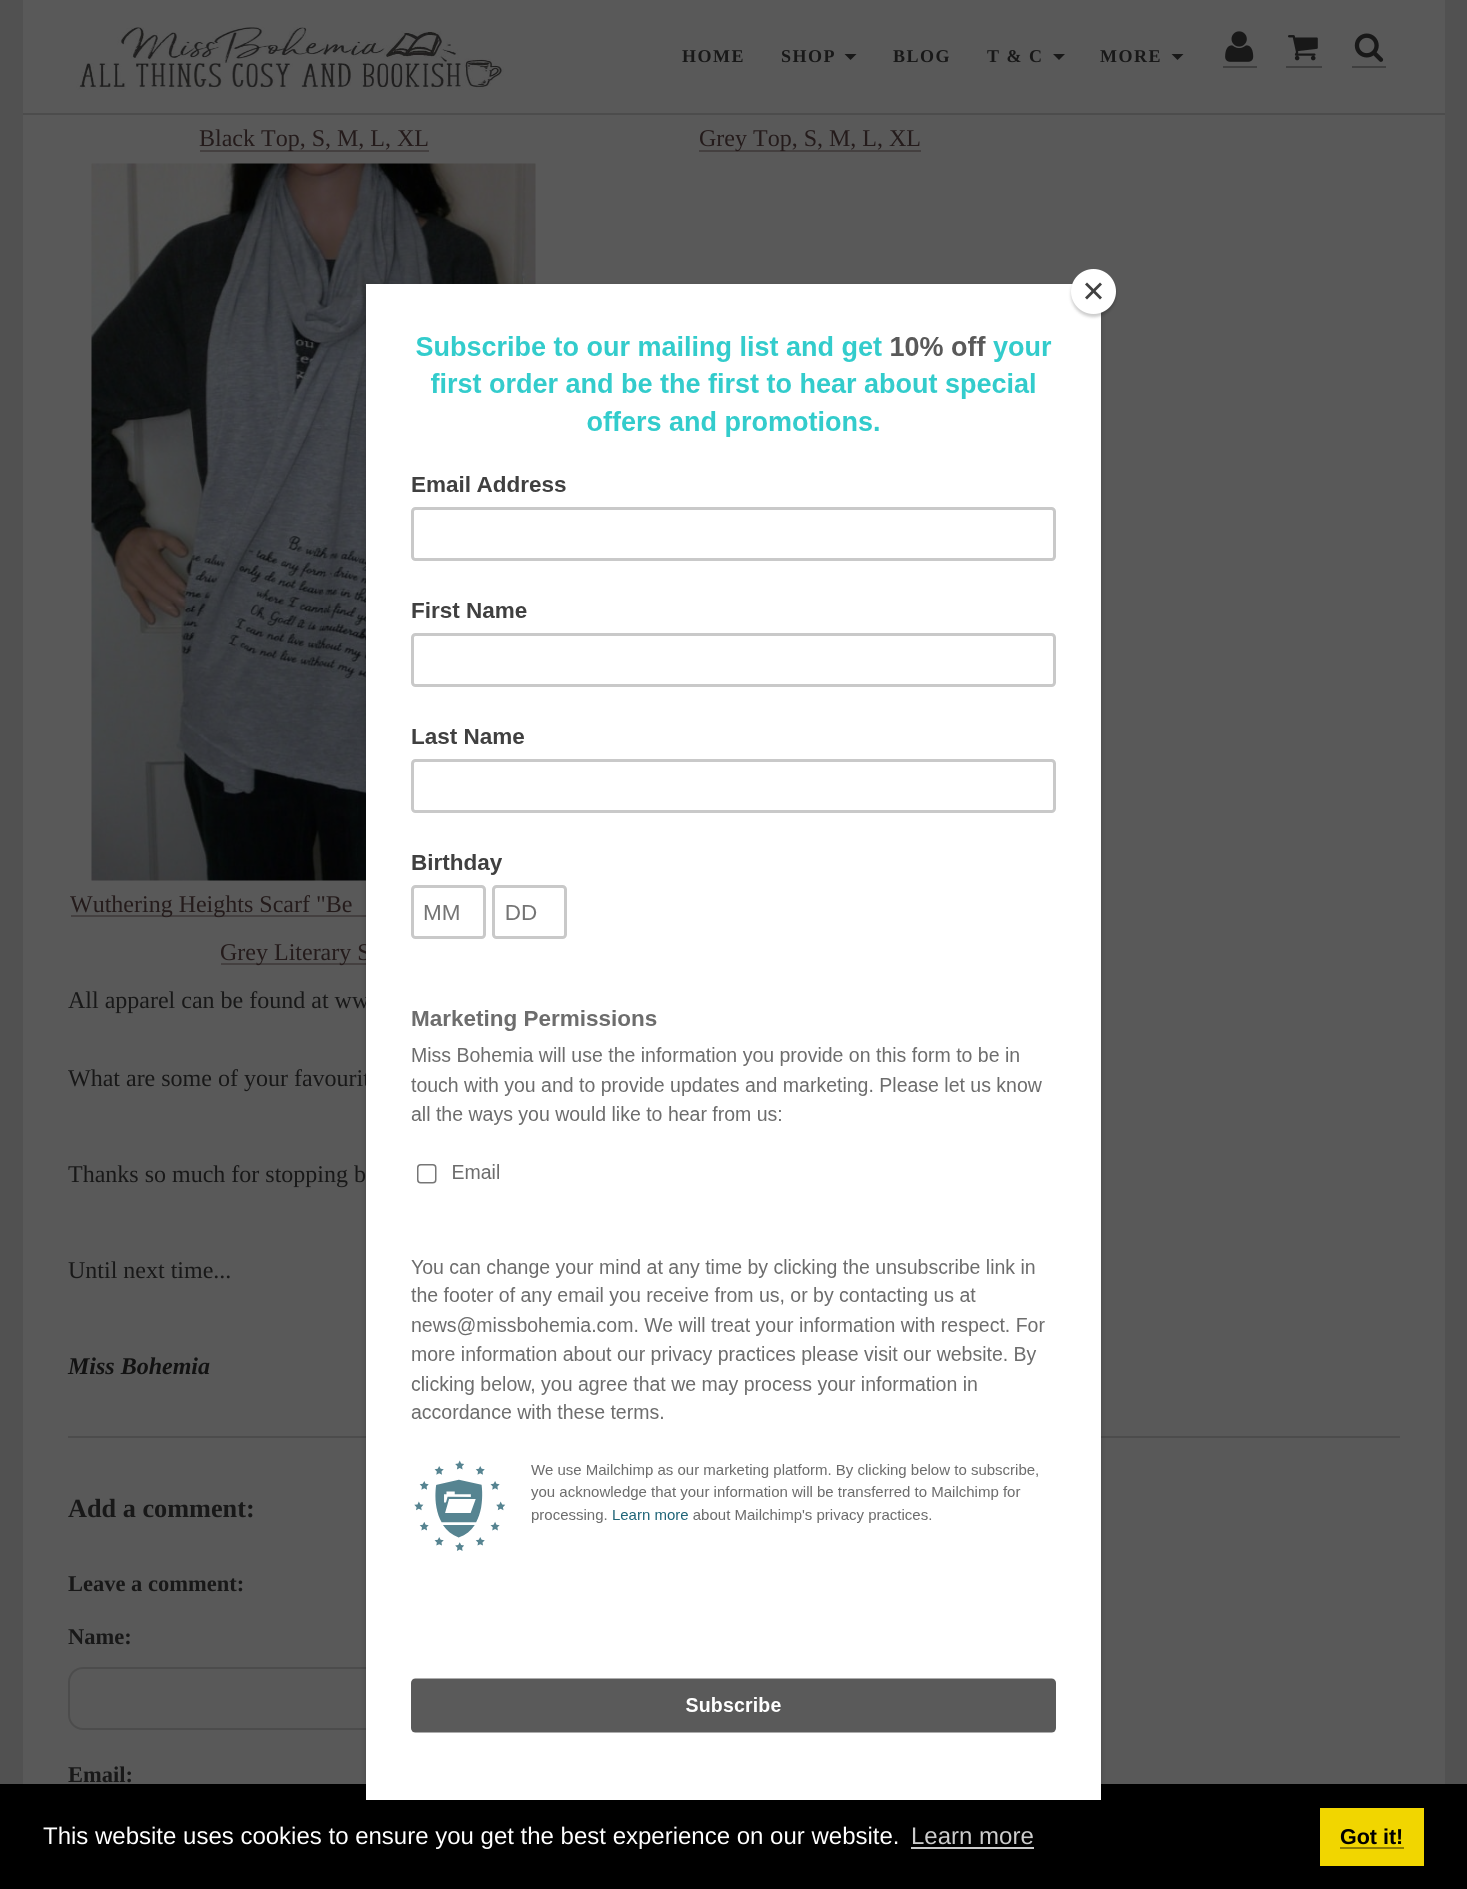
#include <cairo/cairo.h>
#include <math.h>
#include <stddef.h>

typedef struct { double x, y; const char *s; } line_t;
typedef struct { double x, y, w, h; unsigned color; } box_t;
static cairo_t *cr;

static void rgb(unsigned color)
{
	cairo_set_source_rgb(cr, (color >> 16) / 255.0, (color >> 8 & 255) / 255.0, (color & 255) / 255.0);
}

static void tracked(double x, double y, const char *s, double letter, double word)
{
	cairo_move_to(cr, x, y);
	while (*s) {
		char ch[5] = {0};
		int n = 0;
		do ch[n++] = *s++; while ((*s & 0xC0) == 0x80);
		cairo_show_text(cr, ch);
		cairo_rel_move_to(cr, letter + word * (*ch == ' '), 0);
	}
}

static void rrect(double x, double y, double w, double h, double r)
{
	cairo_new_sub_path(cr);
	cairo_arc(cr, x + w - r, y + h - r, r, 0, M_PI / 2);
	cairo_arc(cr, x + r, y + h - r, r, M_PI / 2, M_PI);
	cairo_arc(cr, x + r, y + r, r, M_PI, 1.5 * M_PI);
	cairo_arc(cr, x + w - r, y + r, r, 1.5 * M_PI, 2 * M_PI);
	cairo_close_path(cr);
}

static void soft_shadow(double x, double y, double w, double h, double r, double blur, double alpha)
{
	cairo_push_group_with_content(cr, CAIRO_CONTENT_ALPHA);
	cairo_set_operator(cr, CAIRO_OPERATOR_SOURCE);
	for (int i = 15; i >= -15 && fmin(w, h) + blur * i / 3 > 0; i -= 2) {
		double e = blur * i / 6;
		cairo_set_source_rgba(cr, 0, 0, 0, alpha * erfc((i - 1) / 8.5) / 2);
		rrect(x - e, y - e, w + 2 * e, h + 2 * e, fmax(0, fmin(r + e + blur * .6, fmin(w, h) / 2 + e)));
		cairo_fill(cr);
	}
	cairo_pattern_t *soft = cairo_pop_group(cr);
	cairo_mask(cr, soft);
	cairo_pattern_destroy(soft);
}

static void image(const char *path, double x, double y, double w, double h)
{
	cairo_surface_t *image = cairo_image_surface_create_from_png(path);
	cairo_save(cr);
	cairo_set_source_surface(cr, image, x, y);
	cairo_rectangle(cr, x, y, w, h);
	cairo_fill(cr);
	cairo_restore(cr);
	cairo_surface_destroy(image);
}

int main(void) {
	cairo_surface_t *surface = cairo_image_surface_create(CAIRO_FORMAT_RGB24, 1467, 1889);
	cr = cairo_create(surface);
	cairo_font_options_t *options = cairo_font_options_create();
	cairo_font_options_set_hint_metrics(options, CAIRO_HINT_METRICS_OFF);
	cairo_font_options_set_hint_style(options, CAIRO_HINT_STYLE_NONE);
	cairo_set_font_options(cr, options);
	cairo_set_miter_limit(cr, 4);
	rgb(0x515151);
	cairo_paint(cr);
	rgb(0x595959);
	cairo_rectangle(cr, 23, 0, 1422, 113);
	cairo_fill(cr);
	rgb(0x4c4c4c);
	cairo_rectangle(cr, 23, 113, 1422, 2);
	cairo_fill(cr);
	image("img/1.png", 76, 27, 428, 63);
	rgb(0x181818);
	cairo_new_path(cr);
	cairo_move_to(cr, 844.5, 54);
	cairo_line_to(cr, 856.5, 54);
	cairo_line_to(cr, 850.5, 60);
	cairo_close_path(cr);
	cairo_fill(cr);
	cairo_new_path(cr);
	cairo_move_to(cr, 1053, 54);
	cairo_line_to(cr, 1065, 54);
	cairo_line_to(cr, 1059, 60);
	cairo_close_path(cr);
	cairo_fill(cr);
	cairo_new_path(cr);
	cairo_move_to(cr, 1171.5, 54);
	cairo_line_to(cr, 1183.5, 54);
	cairo_line_to(cr, 1177.5, 60);
	cairo_close_path(cr);
	cairo_fill(cr);
	image("img/2.png", 1225, 31, 29, 31);
	rgb(0x3f3f3f);
	cairo_rectangle(cr, 1223, 66, 34, 2);
	cairo_fill(cr);
	image("img/3.png", 1288, 35, 30, 26);
	cairo_rectangle(cr, 1286, 66, 36, 2);
	cairo_fill(cr);
	image("img/4.png", 1354, 33, 30, 29);
	{
		static const box_t items[] = {
			{1352, 66, 34, 2, 0x3f3f3f},
			{23, 115, 1422, 1669, 0x595959},
			{68, 1436, 1332, 2, 0x4c4c4c},
			{200, 150, 229, 2, 0x444040},
			{699, 150, 222, 2, 0x444040},
		};
		for (size_t i = 0; i < sizeof items / sizeof *items; i++) {
			rgb(items[i].color);
			cairo_rectangle(cr, items[i].x, items[i].y, items[i].w, items[i].h);
			cairo_fill(cr);
		}
	}
	image("img/5.png", 91, 163, 445, 718);
	cairo_rectangle(cr, 71, 915, 295, 2);
	cairo_fill(cr);
	cairo_rectangle(cr, 221, 963, 145, 2);
	cairo_fill(cr);
	rrect(69, 1668, 898, 61, 14);
	rgb(0x4c4c4c);
	cairo_stroke(cr);
	rgb(0x000000);
	cairo_rectangle(cr, 0, 1784, 1467, 105);
	cairo_fill(cr);
	rgb(0x000000);
	soft_shadow(366, 287, 735, 1516, 0, 3, 0.2);
	{
		static const box_t items[] = {
			{911, 1847, 123, 2, 0xcccccc},
			{1320, 1808, 104, 58, 0xf1d600},
			{1340, 1847, 64, 2, 0x918000},
		};
		for (size_t i = 0; i < sizeof items / sizeof *items; i++) {
			rgb(items[i].color);
			cairo_rectangle(cr, items[i].x, items[i].y, items[i].w, items[i].h);
			cairo_fill(cr);
		}
	}
	cairo_select_font_face(cr, "Liberation Serif", CAIRO_FONT_SLANT_NORMAL, CAIRO_FONT_WEIGHT_BOLD);
	cairo_set_font_size(cr, 18);
	rgb(0x181818);
	{
		static const line_t items[] = {
			{682, 62, "HOME"},
			{781, 62, "SHOP"},
			{893, 62, "BLOG"},
			{987, 62, "T & C"},
			{1100, 62, "MORE"},
		};
		for (size_t i = 0; i < sizeof items / sizeof *items; i++) {
			tracked(items[i].x, items[i].y, items[i].s, 1.5, 0);
		}
	}
	cairo_select_font_face(cr, "Liberation Serif", CAIRO_FONT_SLANT_NORMAL, CAIRO_FONT_WEIGHT_NORMAL);
	cairo_set_font_size(cr, 24);
	rgb(0x241b1b);
	{
		static const line_t items[] = {
			{199, 146, "Black Top, S, M, L, XL"},
			{699, 146, "Grey Top, S, M, L, XL"},
			{70, 912, "Wuthering Heights Scarf \"Be"},
			{220, 960, "Grey Literary S"},
		};
		for (size_t i = 0; i < sizeof items / sizeof *items; i++) {
			cairo_move_to(cr, items[i].x, items[i].y);
			cairo_show_text(cr, items[i].s);
		}
	}
	rgb(0x181818);
	{
		static const line_t items[] = {
			{68, 1008, "All apparel can be found at ww"},
			{68, 1086, "What are some of your favourit"},
			{68, 1182, "Thanks so much for stopping b"},
			{68, 1278, "Until next time..."},
		};
		for (size_t i = 0; i < sizeof items / sizeof *items; i++) {
			cairo_move_to(cr, items[i].x, items[i].y);
			cairo_show_text(cr, items[i].s);
		}
	}
	cairo_select_font_face(cr, "Liberation Serif", CAIRO_FONT_SLANT_ITALIC, CAIRO_FONT_WEIGHT_BOLD);
	rgb(0x121212);
	cairo_move_to(cr, 68, 1374);
	cairo_show_text(cr, "Miss Bohemia");
	cairo_select_font_face(cr, "Liberation Serif", CAIRO_FONT_SLANT_NORMAL, CAIRO_FONT_WEIGHT_BOLD);
	cairo_set_font_size(cr, 26.25);
	rgb(0x181818);
	cairo_move_to(cr, 68, 1517);
	cairo_show_text(cr, "Add a comment:");
	cairo_set_font_size(cr, 22.5);
	{
		static const line_t items[] = {
			{68, 1591, "Leave a comment:"},
			{68, 1644, "Name:"},
			{68, 1782, "Email:"},
		};
		for (size_t i = 0; i < sizeof items / sizeof *items; i++) {
			cairo_move_to(cr, items[i].x, items[i].y);
			cairo_show_text(cr, items[i].s);
		}
	}
	image("img/6.png", 366, 284, 735, 1516);
	rgb(0x000000);
	soft_shadow(1071, 272, 45, 45, 22.5, 1.5, 0.2);
	rgb(0xffffff);
	cairo_arc(cr, 1093.5, 291.5, 22.5, 0, 2 * M_PI);
	cairo_fill(cr);
	rgb(0x414141);
	cairo_new_path(cr);
	cairo_move_to(cr, 1100, 282.5);
	cairo_line_to(cr, 1102, 284.5);
	cairo_line_to(cr, 1087, 299.5);
	cairo_line_to(cr, 1085, 297.5);
	cairo_close_path(cr);
	cairo_fill(cr);
	cairo_new_path(cr);
	cairo_move_to(cr, 1085, 284.5);
	cairo_line_to(cr, 1087, 282.5);
	cairo_line_to(cr, 1102, 297.5);
	cairo_line_to(cr, 1100, 299.5);
	cairo_close_path(cr);
	cairo_fill(cr);
	cairo_select_font_face(cr, "Liberation Sans", CAIRO_FONT_SLANT_NORMAL, CAIRO_FONT_WEIGHT_NORMAL);
	cairo_set_font_size(cr, 24);
	rgb(0xffffff);
	cairo_move_to(cr, 43, 1844);
	cairo_show_text(cr, "This website uses cookies to ensure you get the best experience on our website.");
	rgb(0xcccccc);
	cairo_move_to(cr, 911, 1844);
	cairo_show_text(cr, "Learn more");
	cairo_select_font_face(cr, "Liberation Sans", CAIRO_FONT_SLANT_NORMAL, CAIRO_FONT_WEIGHT_BOLD);
	cairo_set_font_size(cr, 21.5);
	rgb(0x000000);
	cairo_move_to(cr, 1340, 1844);
	cairo_show_text(cr, "Got it!");
	cairo_surface_write_to_png(surface, "page.png");
	cairo_font_options_destroy(options);
	cairo_destroy(cr);
	cairo_surface_destroy(surface);
	return 0;
}
